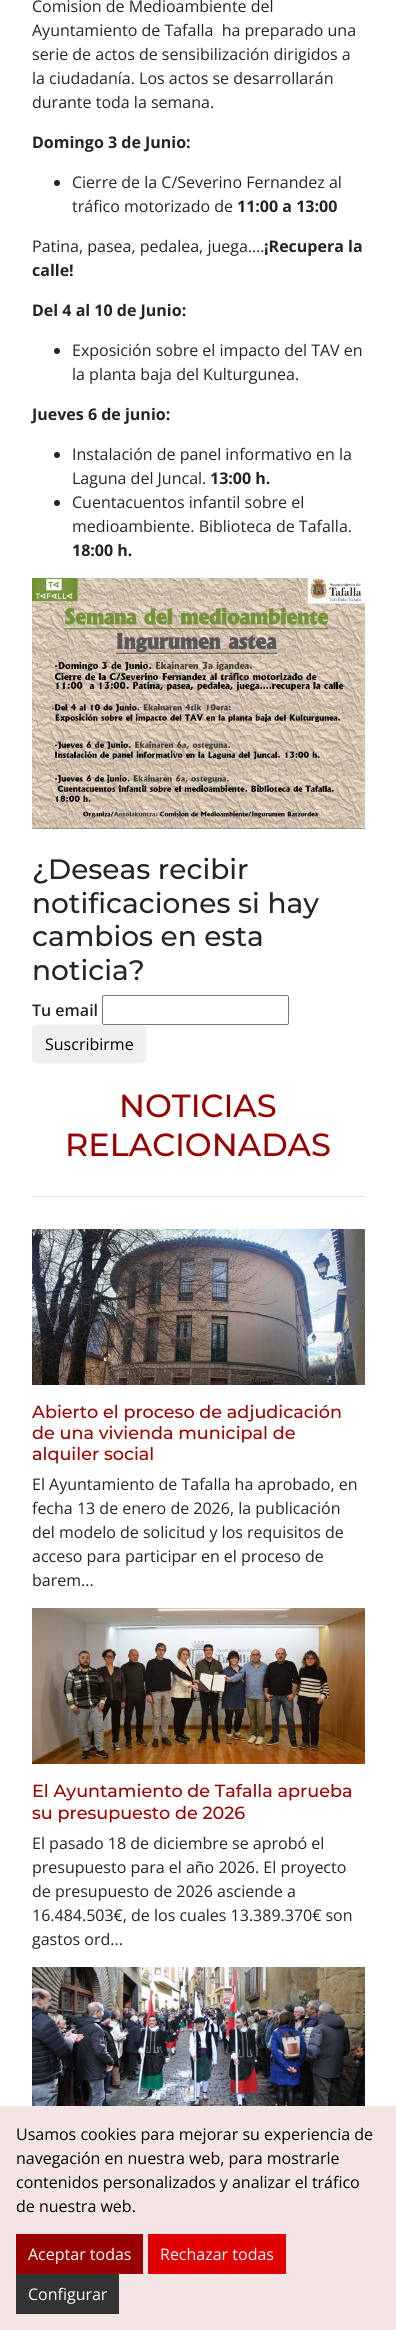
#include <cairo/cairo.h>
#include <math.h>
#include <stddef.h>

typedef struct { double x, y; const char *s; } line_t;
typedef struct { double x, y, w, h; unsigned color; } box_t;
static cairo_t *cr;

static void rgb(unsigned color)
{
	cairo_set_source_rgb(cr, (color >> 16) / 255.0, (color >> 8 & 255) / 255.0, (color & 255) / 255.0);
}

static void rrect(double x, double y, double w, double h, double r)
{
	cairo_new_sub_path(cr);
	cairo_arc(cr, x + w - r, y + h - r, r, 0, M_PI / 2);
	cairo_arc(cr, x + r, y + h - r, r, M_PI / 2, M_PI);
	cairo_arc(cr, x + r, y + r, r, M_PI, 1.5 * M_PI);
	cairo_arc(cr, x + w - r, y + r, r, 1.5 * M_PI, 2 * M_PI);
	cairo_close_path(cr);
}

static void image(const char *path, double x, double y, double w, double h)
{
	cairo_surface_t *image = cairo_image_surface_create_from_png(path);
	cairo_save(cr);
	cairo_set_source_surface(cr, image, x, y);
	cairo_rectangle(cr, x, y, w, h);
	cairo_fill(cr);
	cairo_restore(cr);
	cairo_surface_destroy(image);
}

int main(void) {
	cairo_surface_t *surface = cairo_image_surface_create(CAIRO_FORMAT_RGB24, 396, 2330);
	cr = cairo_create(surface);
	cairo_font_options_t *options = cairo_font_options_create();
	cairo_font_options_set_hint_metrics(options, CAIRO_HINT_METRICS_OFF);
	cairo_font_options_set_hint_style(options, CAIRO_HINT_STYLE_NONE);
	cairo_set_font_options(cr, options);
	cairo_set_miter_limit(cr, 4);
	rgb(0xffffff);
	cairo_paint(cr);
	rgb(0x212529);
	cairo_arc(cr, 57, 183, 3, 0, 2 * M_PI);
	cairo_fill(cr);
	cairo_arc(cr, 57, 351, 3, 0, 2 * M_PI);
	cairo_fill(cr);
	cairo_arc(cr, 57, 455, 3, 0, 2 * M_PI);
	cairo_fill(cr);
	cairo_arc(cr, 57, 503, 3, 0, 2 * M_PI);
	cairo_fill(cr);
	image("img/1.png", 32, 578, 333, 251);
	rrect(102.5, 995.5, 186, 29, 1.5);
	rgb(0x767676);
	cairo_set_line_width(cr, 1);
	cairo_stroke(cr);
	rgb(0xefefef);
	rrect(32, 1025, 114, 38, 4);
	cairo_fill(cr);
	rgb(0xe6e3e3);
	cairo_rectangle(cr, 32, 1196, 333, 1);
	cairo_fill(cr);
	image("img/2.png", 32, 1229, 333, 156);
	image("img/3.png", 32, 1608, 333, 156);
	image("img/4.png", 32, 1967, 333, 139);
	{
		static const box_t items[] = {
			{0, 2106, 396, 224, 0xf3e5e4},
			{16, 2234, 127, 40, 0x990000},
			{148, 2234, 138, 40, 0xe00000},
			{16, 2274, 103, 40, 0x333333},
		};
		for (size_t i = 0; i < sizeof items / sizeof *items; i++) {
			rgb(items[i].color);
			cairo_rectangle(cr, items[i].x, items[i].y, items[i].w, items[i].h);
			cairo_fill(cr);
		}
	}
	cairo_select_font_face(cr, "Open Sans", CAIRO_FONT_SLANT_NORMAL, CAIRO_FONT_WEIGHT_NORMAL);
	cairo_set_font_size(cr, 16);
	rgb(0x212529);
	{
		static const line_t items[] = {
			{32, 12, "Comision de Medioambiente del"},
			{32, 36, "Ayuntamiento de Tafalla  ha preparado una"},
			{32, 60, "serie de actos de sensibilización dirigidos a"},
			{32, 84, "la ciudadanía. Los actos se desarrollarán"},
			{32, 108, "durante toda la semana."},
		};
		for (size_t i = 0; i < sizeof items / sizeof *items; i++) {
			cairo_move_to(cr, items[i].x, items[i].y);
			cairo_show_text(cr, items[i].s);
		}
	}
	cairo_select_font_face(cr, "Open Sans", CAIRO_FONT_SLANT_NORMAL, CAIRO_FONT_WEIGHT_BOLD);
	cairo_move_to(cr, 32, 148);
	cairo_show_text(cr, "Domingo 3 de Junio:");
	cairo_select_font_face(cr, "Open Sans", CAIRO_FONT_SLANT_NORMAL, CAIRO_FONT_WEIGHT_NORMAL);
	cairo_move_to(cr, 72, 188);
	cairo_show_text(cr, "Cierre de la C/Severino Fernandez al");
	cairo_move_to(cr, 72, 212);
	cairo_show_text(cr, "tráfico motorizado de");
	cairo_select_font_face(cr, "Open Sans", CAIRO_FONT_SLANT_NORMAL, CAIRO_FONT_WEIGHT_BOLD);
	cairo_move_to(cr, 237, 212);
	cairo_show_text(cr, "11:00 a 13:00");
	cairo_select_font_face(cr, "Open Sans", CAIRO_FONT_SLANT_NORMAL, CAIRO_FONT_WEIGHT_NORMAL);
	cairo_move_to(cr, 32, 252);
	cairo_show_text(cr, "Patina, pasea, pedalea, juega….");
	cairo_select_font_face(cr, "Open Sans", CAIRO_FONT_SLANT_NORMAL, CAIRO_FONT_WEIGHT_BOLD);
	{
		static const line_t items[] = {
			{264, 252, "¡Recupera la"},
			{32, 276, "calle!"},
			{32, 316, "Del 4 al 10 de Junio:"},
		};
		for (size_t i = 0; i < sizeof items / sizeof *items; i++) {
			cairo_move_to(cr, items[i].x, items[i].y);
			cairo_show_text(cr, items[i].s);
		}
	}
	cairo_select_font_face(cr, "Open Sans", CAIRO_FONT_SLANT_NORMAL, CAIRO_FONT_WEIGHT_NORMAL);
	cairo_move_to(cr, 72, 356);
	cairo_show_text(cr, "Exposición sobre el impacto del TAV en");
	cairo_move_to(cr, 72, 380);
	cairo_show_text(cr, "la planta baja del Kulturgunea.");
	cairo_select_font_face(cr, "Open Sans", CAIRO_FONT_SLANT_NORMAL, CAIRO_FONT_WEIGHT_BOLD);
	cairo_move_to(cr, 32, 420);
	cairo_show_text(cr, "Jueves 6 de junio:");
	cairo_select_font_face(cr, "Open Sans", CAIRO_FONT_SLANT_NORMAL, CAIRO_FONT_WEIGHT_NORMAL);
	cairo_move_to(cr, 72, 460);
	cairo_show_text(cr, "Instalación de panel informativo en la");
	cairo_move_to(cr, 72, 484);
	cairo_show_text(cr, "Laguna del Juncal.");
	cairo_select_font_face(cr, "Open Sans", CAIRO_FONT_SLANT_NORMAL, CAIRO_FONT_WEIGHT_BOLD);
	cairo_move_to(cr, 210, 484);
	cairo_show_text(cr, "13:00 h.");
	cairo_select_font_face(cr, "Open Sans", CAIRO_FONT_SLANT_NORMAL, CAIRO_FONT_WEIGHT_NORMAL);
	cairo_move_to(cr, 72, 508);
	cairo_show_text(cr, "Cuentacuentos infantil sobre el");
	cairo_move_to(cr, 72, 532);
	cairo_show_text(cr, "medioambiente. Biblioteca de Tafalla.");
	cairo_select_font_face(cr, "Open Sans", CAIRO_FONT_SLANT_NORMAL, CAIRO_FONT_WEIGHT_BOLD);
	cairo_move_to(cr, 72, 556);
	cairo_show_text(cr, "18:00 h.");
	cairo_select_font_face(cr, "Montserrat Medium", CAIRO_FONT_SLANT_NORMAL, CAIRO_FONT_WEIGHT_NORMAL);
	cairo_set_font_size(cr, 28);
	{
		static const line_t items[] = {
			{32, 879, "¿Deseas recibir"},
			{32, 913, "notificaciones si hay"},
			{32, 946, "cambios en esta"},
			{32, 980, "noticia?"},
		};
		for (size_t i = 0; i < sizeof items / sizeof *items; i++) {
			cairo_move_to(cr, items[i].x, items[i].y);
			cairo_show_text(cr, items[i].s);
		}
	}
	cairo_select_font_face(cr, "Open Sans SemiBold", CAIRO_FONT_SLANT_NORMAL, CAIRO_FONT_WEIGHT_NORMAL);
	cairo_set_font_size(cr, 16);
	cairo_move_to(cr, 32, 1016);
	cairo_show_text(cr, "Tu email");
	cairo_select_font_face(cr, "Open Sans", CAIRO_FONT_SLANT_NORMAL, CAIRO_FONT_WEIGHT_NORMAL);
	rgb(0x000000);
	cairo_move_to(cr, 45, 1050);
	cairo_show_text(cr, "Suscribirme");
	cairo_select_font_face(cr, "Montserrat Medium", CAIRO_FONT_SLANT_NORMAL, CAIRO_FONT_WEIGHT_NORMAL);
	cairo_set_font_size(cr, 32);
	rgb(0x990000);
	cairo_move_to(cr, 119, 1117);
	cairo_show_text(cr, "NOTICIAS");
	cairo_move_to(cr, 65, 1156);
	cairo_show_text(cr, "RELACIONADAS");
	cairo_set_font_size(cr, 17.6);
	{
		static const line_t items[] = {
			{32, 1418, "Abierto el proceso de adjudicación"},
			{32, 1439, "de una vivienda municipal de"},
			{32, 1460, "alquiler social"},
		};
		for (size_t i = 0; i < sizeof items / sizeof *items; i++) {
			cairo_move_to(cr, items[i].x, items[i].y);
			cairo_show_text(cr, items[i].s);
		}
	}
	cairo_select_font_face(cr, "Open Sans", CAIRO_FONT_SLANT_NORMAL, CAIRO_FONT_WEIGHT_NORMAL);
	cairo_set_font_size(cr, 16);
	rgb(0x212529);
	{
		static const line_t items[] = {
			{32, 1490, "El Ayuntamiento de Tafalla ha aprobado, en"},
			{32, 1514, "fecha 13 de enero de 2026, la publicación"},
			{32, 1538, "del modelo de solicitud y los requisitos de"},
			{32, 1562, "acceso para participar en el proceso de"},
			{32, 1586, "barem..."},
		};
		for (size_t i = 0; i < sizeof items / sizeof *items; i++) {
			cairo_move_to(cr, items[i].x, items[i].y);
			cairo_show_text(cr, items[i].s);
		}
	}
	cairo_select_font_face(cr, "Montserrat Medium", CAIRO_FONT_SLANT_NORMAL, CAIRO_FONT_WEIGHT_NORMAL);
	cairo_set_font_size(cr, 17.6);
	rgb(0x990000);
	cairo_move_to(cr, 32, 1797);
	cairo_show_text(cr, "El Ayuntamiento de Tafalla aprueba");
	cairo_move_to(cr, 32, 1819);
	cairo_show_text(cr, "su presupuesto de 2026");
	cairo_select_font_face(cr, "Open Sans", CAIRO_FONT_SLANT_NORMAL, CAIRO_FONT_WEIGHT_NORMAL);
	cairo_set_font_size(cr, 16);
	rgb(0x212529);
	{
		static const line_t items[] = {
			{32, 1849, "El pasado 18 de diciembre se aprobó el"},
			{32, 1873, "presupuesto para el año 2026. El proyecto"},
			{32, 1897, "de presupuesto de 2026 asciende a"},
			{32, 1921, "16.484.503€, de los cuales 13.389.370€ son"},
			{32, 1945, "gastos ord..."},
		};
		for (size_t i = 0; i < sizeof items / sizeof *items; i++) {
			cairo_move_to(cr, items[i].x, items[i].y);
			cairo_show_text(cr, items[i].s);
		}
	}
	rgb(0x000000);
	{
		static const line_t items[] = {
			{16, 2140, "Usamos cookies para mejorar su experiencia de"},
			{16, 2164, "navegación en nuestra web, para mostrarle"},
			{16, 2188, "contenidos personalizados y analizar el tráfico"},
			{16, 2212, "de nuestra web."},
		};
		for (size_t i = 0; i < sizeof items / sizeof *items; i++) {
			cairo_move_to(cr, items[i].x, items[i].y);
			cairo_show_text(cr, items[i].s);
		}
	}
	rgb(0xffffff);
	{
		static const line_t items[] = {
			{28, 2260, "Aceptar todas"},
			{160, 2260, "Rechazar todas"},
			{28, 2300, "Configurar"},
		};
		for (size_t i = 0; i < sizeof items / sizeof *items; i++) {
			cairo_move_to(cr, items[i].x, items[i].y);
			cairo_show_text(cr, items[i].s);
		}
	}
	cairo_surface_write_to_png(surface, "page.png");
	cairo_font_options_destroy(options);
	cairo_destroy(cr);
	cairo_surface_destroy(surface);
	return 0;
}
